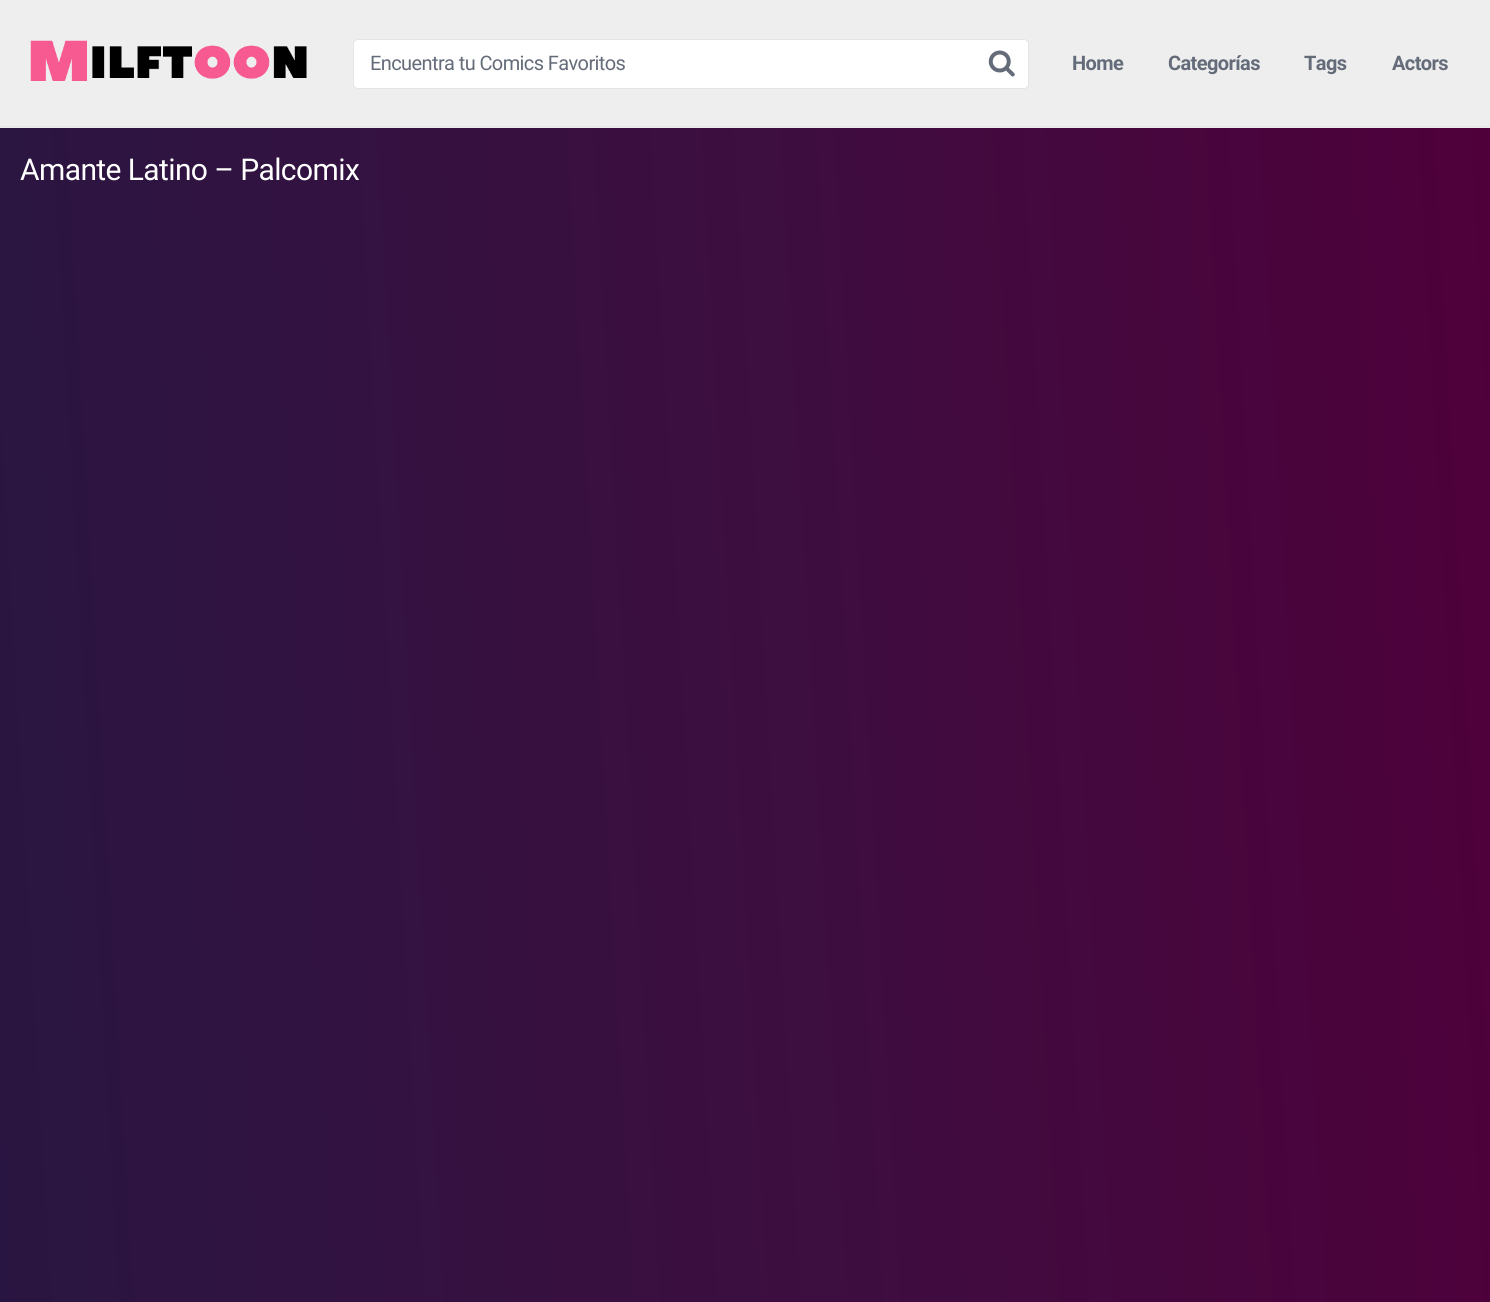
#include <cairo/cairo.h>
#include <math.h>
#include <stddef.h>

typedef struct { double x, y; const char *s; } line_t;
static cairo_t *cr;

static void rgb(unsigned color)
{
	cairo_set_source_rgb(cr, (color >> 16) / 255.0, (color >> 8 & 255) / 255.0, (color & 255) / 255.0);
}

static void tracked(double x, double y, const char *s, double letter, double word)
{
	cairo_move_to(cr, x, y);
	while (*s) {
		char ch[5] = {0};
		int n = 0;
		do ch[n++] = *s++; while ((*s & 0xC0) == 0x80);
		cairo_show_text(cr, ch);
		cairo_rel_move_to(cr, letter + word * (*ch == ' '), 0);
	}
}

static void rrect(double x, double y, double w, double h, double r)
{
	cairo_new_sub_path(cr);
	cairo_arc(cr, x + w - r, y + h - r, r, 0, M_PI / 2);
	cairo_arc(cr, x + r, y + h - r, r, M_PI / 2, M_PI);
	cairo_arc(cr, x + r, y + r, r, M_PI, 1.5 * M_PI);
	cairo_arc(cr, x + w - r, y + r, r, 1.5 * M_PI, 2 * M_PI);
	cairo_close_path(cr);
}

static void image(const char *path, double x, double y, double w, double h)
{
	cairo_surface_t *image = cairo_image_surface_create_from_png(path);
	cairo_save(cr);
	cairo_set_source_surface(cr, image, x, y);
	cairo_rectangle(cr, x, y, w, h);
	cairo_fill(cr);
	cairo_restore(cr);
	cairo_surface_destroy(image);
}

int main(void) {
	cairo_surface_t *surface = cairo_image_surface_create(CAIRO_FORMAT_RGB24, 1490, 1302);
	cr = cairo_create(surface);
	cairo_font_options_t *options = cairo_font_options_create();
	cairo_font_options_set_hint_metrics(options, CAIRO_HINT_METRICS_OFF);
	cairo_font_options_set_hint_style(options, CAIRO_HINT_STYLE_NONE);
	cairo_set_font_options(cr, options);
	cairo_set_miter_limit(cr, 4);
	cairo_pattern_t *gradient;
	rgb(0xffffff);
	cairo_paint(cr);
	gradient = cairo_pattern_create_linear(-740, 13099, 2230, 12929);
	cairo_pattern_add_color_stop_rgba(gradient, 0, 0.02, 0.098, 0.216, 1);
	cairo_pattern_add_color_stop_rgba(gradient, 0.25, 0.094, 0.094, 0.243, 1);
	cairo_pattern_add_color_stop_rgba(gradient, 0.5, 0.169, 0.082, 0.255, 1);
	cairo_pattern_add_color_stop_rgba(gradient, 0.75, 0.239, 0.055, 0.251, 1);
	cairo_pattern_add_color_stop_rgba(gradient, 1, 0.31, 0, 0.231, 1);
	cairo_set_source(cr, gradient);
	cairo_pattern_destroy(gradient);
	cairo_rectangle(cr, 0, 128, 1490, 1174);
	cairo_fill(cr);
	rgb(0xeeeeee);
	cairo_rectangle(cr, 0, 0, 1490, 128);
	cairo_fill(cr);
	rgb(0xe5e5e5);
	cairo_rectangle(cr, 0, 126, 1490, 1);
	cairo_fill(cr);
	image("img/1.png", 30, 40, 277, 41);
	rgb(0xffffff);
	rrect(353.5, 39.5, 675, 49, 4.5);
	cairo_fill_preserve(cr);
	rgb(0xe5e5e5);
	cairo_set_line_width(cr, 1);
	cairo_stroke(cr);
	image("img/2.png", 988, 50, 27, 27);
	cairo_select_font_face(cr, "Roboto", CAIRO_FONT_SLANT_NORMAL, CAIRO_FONT_WEIGHT_NORMAL);
	cairo_set_font_size(cr, 20);
	rgb(0x646c79);
	tracked(370, 70, "Encuentra tu Comics Favoritos", -0.6, 0);
	cairo_select_font_face(cr, "Roboto", CAIRO_FONT_SLANT_NORMAL, CAIRO_FONT_WEIGHT_BOLD);
	{
		static const line_t items[] = {
			{1072, 70, "Home"},
			{1168, 70, "Categorías"},
			{1304, 70, "Tags"},
			{1392, 70, "Actors"},
		};
		for (size_t i = 0; i < sizeof items / sizeof *items; i++) {
			tracked(items[i].x, items[i].y, items[i].s, -0.6, 0);
		}
	}
	cairo_select_font_face(cr, "Roboto", CAIRO_FONT_SLANT_NORMAL, CAIRO_FONT_WEIGHT_NORMAL);
	cairo_set_font_size(cr, 30);
	rgb(0xffffff);
	tracked(20, 180, "Amante Latino – Palcomix", -0.6, 0);
	cairo_surface_write_to_png(surface, "page.png");
	cairo_font_options_destroy(options);
	cairo_destroy(cr);
	cairo_surface_destroy(surface);
	return 0;
}
